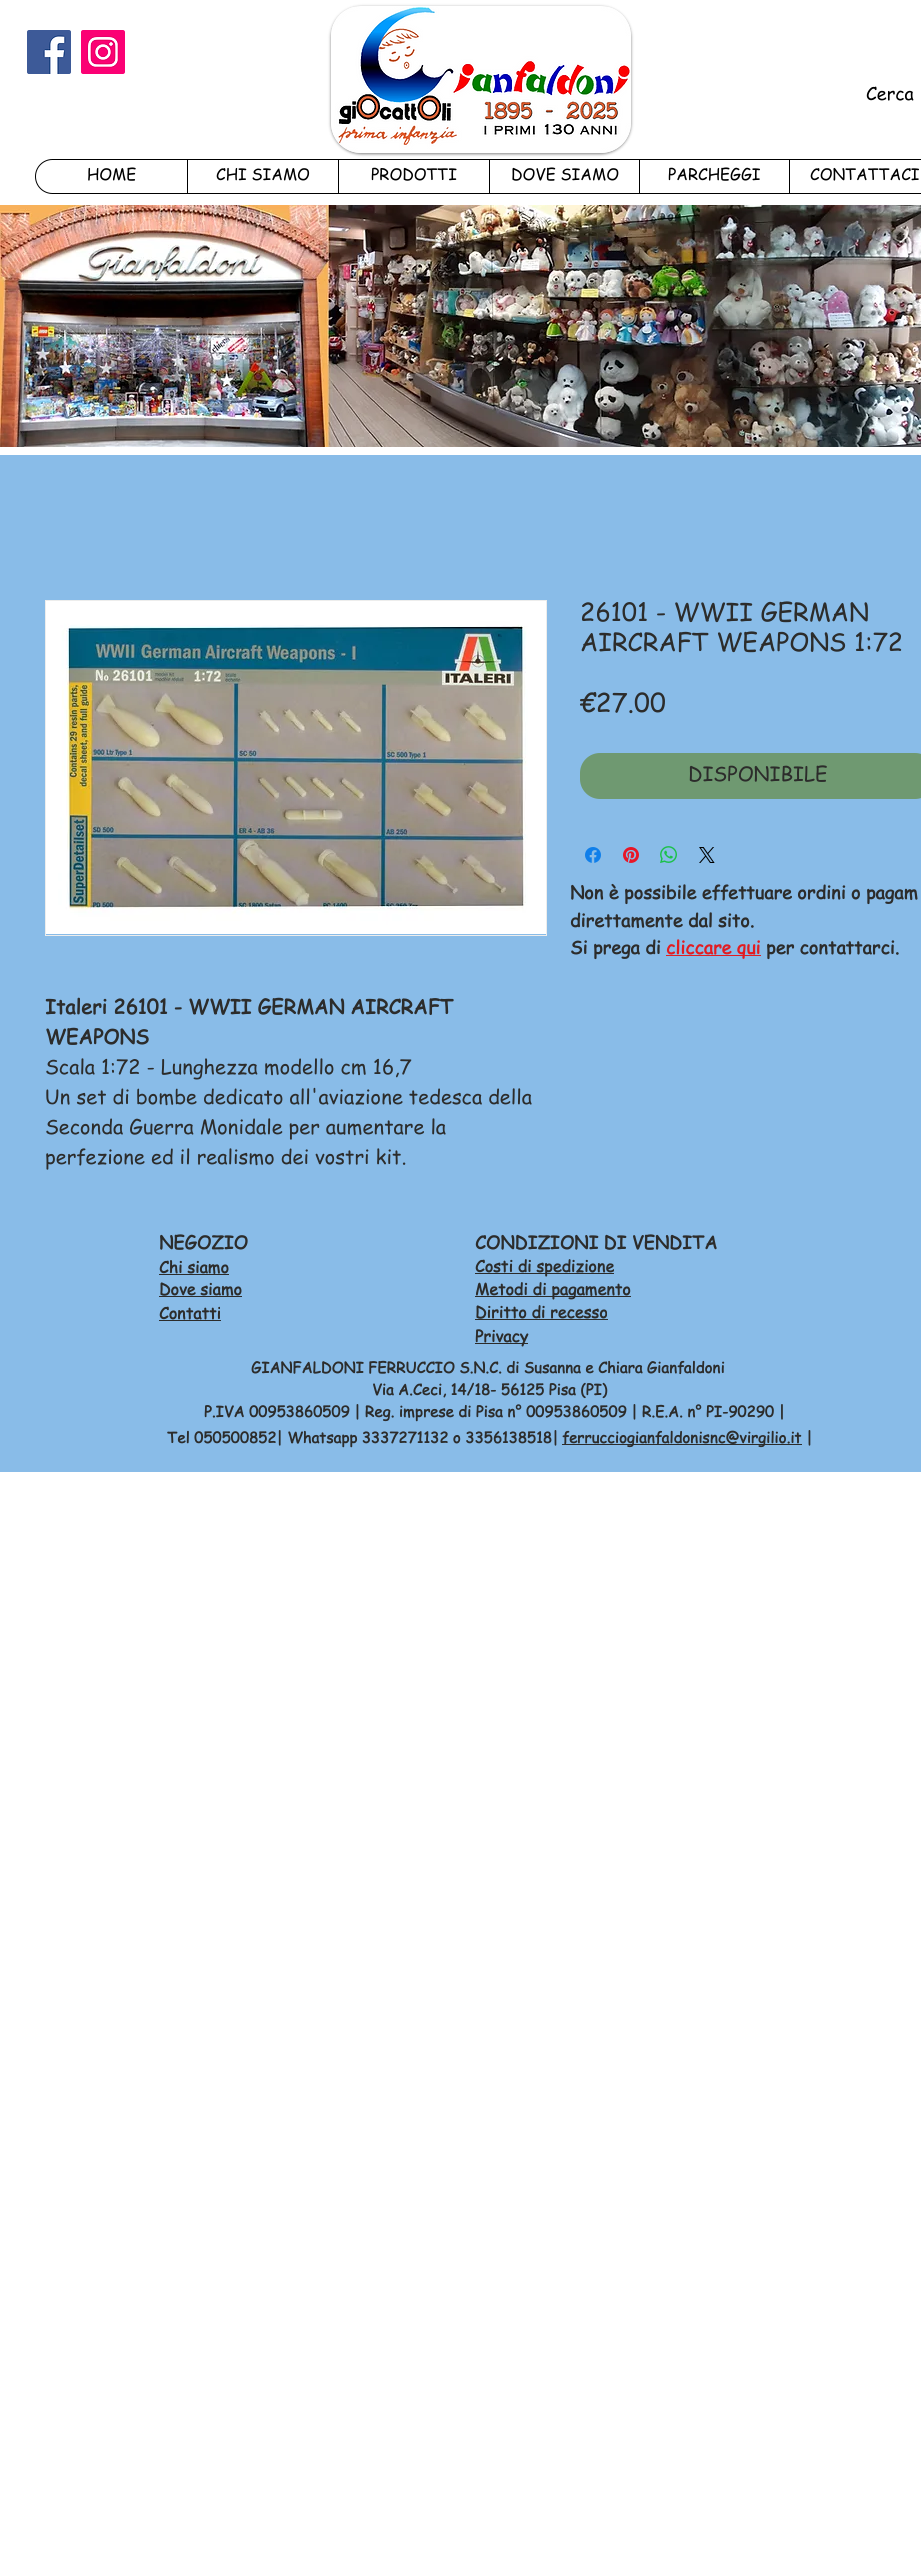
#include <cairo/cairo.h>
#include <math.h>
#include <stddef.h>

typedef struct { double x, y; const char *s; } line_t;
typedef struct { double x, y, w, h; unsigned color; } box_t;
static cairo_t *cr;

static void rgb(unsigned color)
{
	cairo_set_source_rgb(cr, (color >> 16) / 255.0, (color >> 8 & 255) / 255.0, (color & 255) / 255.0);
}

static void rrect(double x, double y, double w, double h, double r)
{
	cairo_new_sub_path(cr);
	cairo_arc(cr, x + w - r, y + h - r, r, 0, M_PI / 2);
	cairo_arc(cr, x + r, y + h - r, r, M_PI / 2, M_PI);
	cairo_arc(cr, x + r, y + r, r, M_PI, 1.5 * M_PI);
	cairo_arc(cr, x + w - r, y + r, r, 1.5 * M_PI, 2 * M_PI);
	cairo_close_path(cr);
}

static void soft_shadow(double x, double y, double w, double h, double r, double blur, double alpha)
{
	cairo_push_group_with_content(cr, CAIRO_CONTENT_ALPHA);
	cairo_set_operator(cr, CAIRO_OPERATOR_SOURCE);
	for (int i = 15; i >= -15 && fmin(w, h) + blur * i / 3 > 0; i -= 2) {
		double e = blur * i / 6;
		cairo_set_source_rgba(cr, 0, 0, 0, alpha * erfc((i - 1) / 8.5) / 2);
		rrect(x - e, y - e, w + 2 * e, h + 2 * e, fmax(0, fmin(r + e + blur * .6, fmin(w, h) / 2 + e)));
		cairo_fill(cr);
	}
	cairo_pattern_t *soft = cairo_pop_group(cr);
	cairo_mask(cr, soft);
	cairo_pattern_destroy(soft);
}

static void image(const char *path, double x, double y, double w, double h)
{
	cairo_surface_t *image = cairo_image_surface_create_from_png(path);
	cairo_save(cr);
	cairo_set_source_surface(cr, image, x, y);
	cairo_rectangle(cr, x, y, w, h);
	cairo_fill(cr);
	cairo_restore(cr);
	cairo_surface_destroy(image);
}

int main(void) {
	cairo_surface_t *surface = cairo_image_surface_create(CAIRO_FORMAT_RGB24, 921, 2553);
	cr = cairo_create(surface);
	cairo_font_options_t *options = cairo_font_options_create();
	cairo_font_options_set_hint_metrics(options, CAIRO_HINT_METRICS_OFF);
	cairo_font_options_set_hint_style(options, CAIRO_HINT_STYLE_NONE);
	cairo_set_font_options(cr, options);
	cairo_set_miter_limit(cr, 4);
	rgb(0xffffff);
	cairo_paint(cr);
	image("img/1.png", 27, 30, 44, 44);
	image("img/2.png", 81, 30, 44, 44);
	rgb(0x000000);
	soft_shadow(331, 7, 300, 147, 30, 1.5, 0.5);
	rgb(0xffffff);
	rrect(331, 6, 300, 147, 30);
	cairo_fill(cr);
	image("img/3.png", 331, 7, 300, 146);
	rrect(35.5, 159.5, 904, 34, 17);
	rgb(0x000000);
	cairo_set_line_width(cr, 1);
	cairo_stroke(cr);
	{
		static const box_t items[] = {
			{187, 160, 1, 33, 0x000000},
			{338, 160, 1, 33, 0x000000},
			{489, 160, 1, 33, 0x000000},
			{639, 160, 1, 33, 0x000000},
			{789, 160, 1, 33, 0x000000},
		};
		for (size_t i = 0; i < sizeof items / sizeof *items; i++) {
			rgb(items[i].color);
			cairo_rectangle(cr, items[i].x, items[i].y, items[i].w, items[i].h);
			cairo_fill(cr);
		}
	}
	image("img/4.png", 0, 205, 921, 242);
	rgb(0x89bce8);
	cairo_rectangle(cr, 0, 455, 921, 1017);
	cairo_fill(cr);
	rgb(0x6f9971);
	rrect(580, 753, 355, 46, 20);
	cairo_fill(cr);
	image("img/5.png", 585, 847, 16, 16);
	image("img/6.png", 623, 847, 16, 16);
	image("img/7.png", 660, 846, 17, 17);
	image("img/8.png", 699, 847, 16, 16);
	cairo_rectangle(cr, 45.5, 600.5, 501, 335);
	rgb(0xededec);
	cairo_stroke(cr);
	image("img/9.png", 46, 601, 500, 333);
	{
		static const box_t items[] = {
			{666, 955, 95, 1, 0xe21c21},
			{159, 1274, 70, 1, 0x2c2c2b},
			{475, 1273, 139, 1, 0x2c2c2b},
			{159, 1296, 83, 1, 0x2c2c2b},
			{475, 1296, 156, 1, 0x2c2c2b},
			{159, 1320, 62, 1, 0x2c2c2b},
			{475, 1319, 133, 1, 0x2c2c2b},
			{475, 1343, 53, 1, 0x2c2c2b},
			{562, 1444, 240, 1, 0x2c2c2b},
		};
		for (size_t i = 0; i < sizeof items / sizeof *items; i++) {
			rgb(items[i].color);
			cairo_rectangle(cr, items[i].x, items[i].y, items[i].w, items[i].h);
			cairo_fill(cr);
		}
	}
	cairo_select_font_face(cr, "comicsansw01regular", CAIRO_FONT_SLANT_NORMAL, CAIRO_FONT_WEIGHT_NORMAL);
	cairo_set_font_size(cr, 18);
	rgb(0x000000);
	cairo_move_to(cr, 866, 100);
	cairo_show_text(cr, "Cerca");
	cairo_set_font_size(cr, 16);
	{
		static const line_t items[] = {
			{87, 180, "HOME"},
			{216, 180, "CHI SIAMO"},
			{371, 180, "PRODOTTI"},
			{511, 180, "DOVE SIAMO"},
			{668, 180, "PARCHEGGI"},
			{810, 180, "CONTATTACI"},
		};
		for (size_t i = 0; i < sizeof items / sizeof *items; i++) {
			cairo_move_to(cr, items[i].x, items[i].y);
			cairo_show_text(cr, items[i].s);
		}
	}
	cairo_set_font_size(cr, 25);
	rgb(0x2c2c2b);
	cairo_move_to(cr, 580, 621);
	cairo_show_text(cr, "26101 - WWII GERMAN");
	cairo_move_to(cr, 580, 651);
	cairo_show_text(cr, "AIRCRAFT WEAPONS 1:72");
	cairo_set_font_size(cr, 26);
	cairo_move_to(cr, 580, 712);
	cairo_show_text(cr, "€27.00");
	cairo_set_font_size(cr, 20);
	cairo_move_to(cr, 688, 781);
	cairo_show_text(cr, "DISPONIBILE");
	cairo_select_font_face(cr, "comicsansw01regular", CAIRO_FONT_SLANT_NORMAL, CAIRO_FONT_WEIGHT_BOLD);
	cairo_move_to(cr, 45, 1014);
	cairo_show_text(cr, "Italeri 26101 - WWII GERMAN AIRCRAFT");
	cairo_move_to(cr, 45, 1044);
	cairo_show_text(cr, "WEAPONS");
	cairo_select_font_face(cr, "comicsansw01regular", CAIRO_FONT_SLANT_NORMAL, CAIRO_FONT_WEIGHT_NORMAL);
	{
		static const line_t items[] = {
			{45, 1074, "Scala 1:72 - Lunghezza modello cm 16,7"},
			{45, 1104, "Un set di bombe dedicato all'aviazione tedesca della"},
			{45, 1134, "Seconda Guerra Monidale per aumentare la"},
			{45, 1164, "perfezione ed il realismo dei vostri kit."},
		};
		for (size_t i = 0; i < sizeof items / sizeof *items; i++) {
			cairo_move_to(cr, items[i].x, items[i].y);
			cairo_show_text(cr, items[i].s);
		}
	}
	cairo_select_font_face(cr, "comicsansw01regular", CAIRO_FONT_SLANT_NORMAL, CAIRO_FONT_WEIGHT_BOLD);
	cairo_set_font_size(cr, 18);
	{
		static const line_t items[] = {
			{570, 899, "Non è possibile effettuare ordini o pagam"},
			{570, 927, "direttamente dal sito."},
			{570, 954, "Si prega di"},
		};
		for (size_t i = 0; i < sizeof items / sizeof *items; i++) {
			cairo_move_to(cr, items[i].x, items[i].y);
			cairo_show_text(cr, items[i].s);
		}
	}
	rgb(0xe21c21);
	cairo_move_to(cr, 666, 954);
	cairo_show_text(cr, "cliccare qui");
	rgb(0x2c2c2b);
	{
		static const line_t items[] = {
			{766, 954, "per contattarci."},
			{159, 1249, "NEGOZIO"},
			{475, 1249, "CONDIZIONI DI VENDITA"},
		};
		for (size_t i = 0; i < sizeof items / sizeof *items; i++) {
			cairo_move_to(cr, items[i].x, items[i].y);
			cairo_show_text(cr, items[i].s);
		}
	}
	cairo_set_font_size(cr, 16);
	{
		static const line_t items[] = {
			{159, 1273, "Chi siamo"},
			{475, 1272, "Costi di spedizione"},
			{159, 1295, "Dove siamo"},
			{475, 1295, "Metodi di pagamento"},
			{159, 1319, "Contatti"},
			{475, 1318, "Diritto di recesso"},
			{475, 1342, "Privacy"},
		};
		for (size_t i = 0; i < sizeof items / sizeof *items; i++) {
			cairo_move_to(cr, items[i].x, items[i].y);
			cairo_show_text(cr, items[i].s);
		}
	}
	cairo_set_font_size(cr, 15);
	{
		static const line_t items[] = {
			{251, 1373, "GIANFALDONI FERRUCCIO S.N.C. di Susanna e Chiara Gianfaldoni"},
			{372, 1395, "Via A.Ceci, 14/18- 56125 Pisa (PI)"},
			{204, 1417, "P.IVA 00953860509 | Reg. imprese di Pisa n° 00953860509 | R.E.A. n° PI-90290 |"},
			{167, 1443, "Tel 050500852| Whatsapp 3337271132 o 3356138518|"},
			{562, 1443, "ferrucciogianfaldonisnc@virgilio.it |"},
		};
		for (size_t i = 0; i < sizeof items / sizeof *items; i++) {
			cairo_move_to(cr, items[i].x, items[i].y);
			cairo_show_text(cr, items[i].s);
		}
	}
	cairo_surface_write_to_png(surface, "page.png");
	cairo_font_options_destroy(options);
	cairo_destroy(cr);
	cairo_surface_destroy(surface);
	return 0;
}
